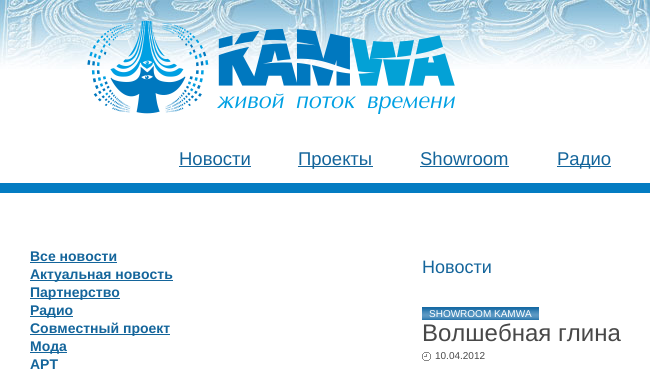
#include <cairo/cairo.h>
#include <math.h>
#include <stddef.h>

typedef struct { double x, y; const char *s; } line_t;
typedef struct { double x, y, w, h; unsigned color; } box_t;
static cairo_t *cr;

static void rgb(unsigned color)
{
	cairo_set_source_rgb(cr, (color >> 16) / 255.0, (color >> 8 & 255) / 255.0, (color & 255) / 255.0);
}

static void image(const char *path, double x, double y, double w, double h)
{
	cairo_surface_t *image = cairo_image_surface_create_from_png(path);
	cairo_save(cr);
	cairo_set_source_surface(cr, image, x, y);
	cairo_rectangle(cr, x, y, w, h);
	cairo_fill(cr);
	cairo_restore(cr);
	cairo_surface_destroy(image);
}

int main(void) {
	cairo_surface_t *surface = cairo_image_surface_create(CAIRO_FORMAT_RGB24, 650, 370);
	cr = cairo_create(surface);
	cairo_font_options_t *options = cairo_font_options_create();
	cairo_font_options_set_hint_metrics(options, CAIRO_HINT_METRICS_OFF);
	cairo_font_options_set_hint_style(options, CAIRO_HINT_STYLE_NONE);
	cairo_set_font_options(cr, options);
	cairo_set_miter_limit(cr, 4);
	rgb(0xffffff);
	cairo_paint(cr);
	image("img/1.png", 0, 0, 650, 69);
	image("img/2.png", 87, 20, 368, 94);
	{
		static const box_t items[] = {
			{0, 183, 650, 10, 0x047cc2},
			{179, 166, 72, 1, 0x14659b},
			{298, 166, 75, 1, 0x14659b},
			{420, 166, 89, 1, 0x14659b},
			{557, 166, 54, 1, 0x14659b},
			{30, 262, 87, 1, 0x14659b},
			{30, 280, 143, 1, 0x14659b},
			{30, 298, 90, 1, 0x14659b},
			{30, 316, 43, 1, 0x14659b},
			{30, 334, 140, 1, 0x14659b},
			{30, 352, 37, 1, 0x14659b},
		};
		for (size_t i = 0; i < sizeof items / sizeof *items; i++) {
			rgb(items[i].color);
			cairo_rectangle(cr, items[i].x, items[i].y, items[i].w, items[i].h);
			cairo_fill(cr);
		}
	}
	image("img/3.png", 422, 307, 117, 13);
	image("img/4.png", 422, 352, 9, 9);
	cairo_select_font_face(cr, "Liberation Sans", CAIRO_FONT_SLANT_NORMAL, CAIRO_FONT_WEIGHT_NORMAL);
	cairo_set_font_size(cr, 18.5);
	{
		static const line_t items[] = {
			{179, 165, "Новости"},
			{298, 165, "Проекты"},
			{420, 165, "Showroom"},
			{557, 165, "Радио"},
		};
		for (size_t i = 0; i < sizeof items / sizeof *items; i++) {
			cairo_move_to(cr, items[i].x, items[i].y);
			cairo_show_text(cr, items[i].s);
		}
	}
	cairo_select_font_face(cr, "Liberation Sans", CAIRO_FONT_SLANT_NORMAL, CAIRO_FONT_WEIGHT_BOLD);
	cairo_set_font_size(cr, 14);
	{
		static const line_t items[] = {
			{30, 261, "Все новости"},
			{30, 279, "Актуальная новость"},
			{30, 297, "Партнерство"},
			{30, 315, "Радио"},
			{30, 333, "Совместный проект"},
			{30, 351, "Мода"},
			{30, 369, "АРТ"},
		};
		for (size_t i = 0; i < sizeof items / sizeof *items; i++) {
			cairo_move_to(cr, items[i].x, items[i].y);
			cairo_show_text(cr, items[i].s);
		}
	}
	cairo_select_font_face(cr, "Liberation Sans", CAIRO_FONT_SLANT_NORMAL, CAIRO_FONT_WEIGHT_NORMAL);
	cairo_set_font_size(cr, 18);
	cairo_move_to(cr, 422, 273);
	cairo_show_text(cr, "Новости");
	cairo_set_font_size(cr, 10);
	rgb(0xffffff);
	cairo_move_to(cr, 429, 317);
	cairo_show_text(cr, "SHOWROOM KAMWA");
	cairo_set_font_size(cr, 24);
	rgb(0x484848);
	cairo_move_to(cr, 422, 341);
	cairo_show_text(cr, "Волшебная глина");
	cairo_set_font_size(cr, 10);
	cairo_move_to(cr, 435, 359);
	cairo_show_text(cr, "10.04.2012");
	cairo_surface_write_to_png(surface, "page.png");
	cairo_font_options_destroy(options);
	cairo_destroy(cr);
	cairo_surface_destroy(surface);
	return 0;
}
